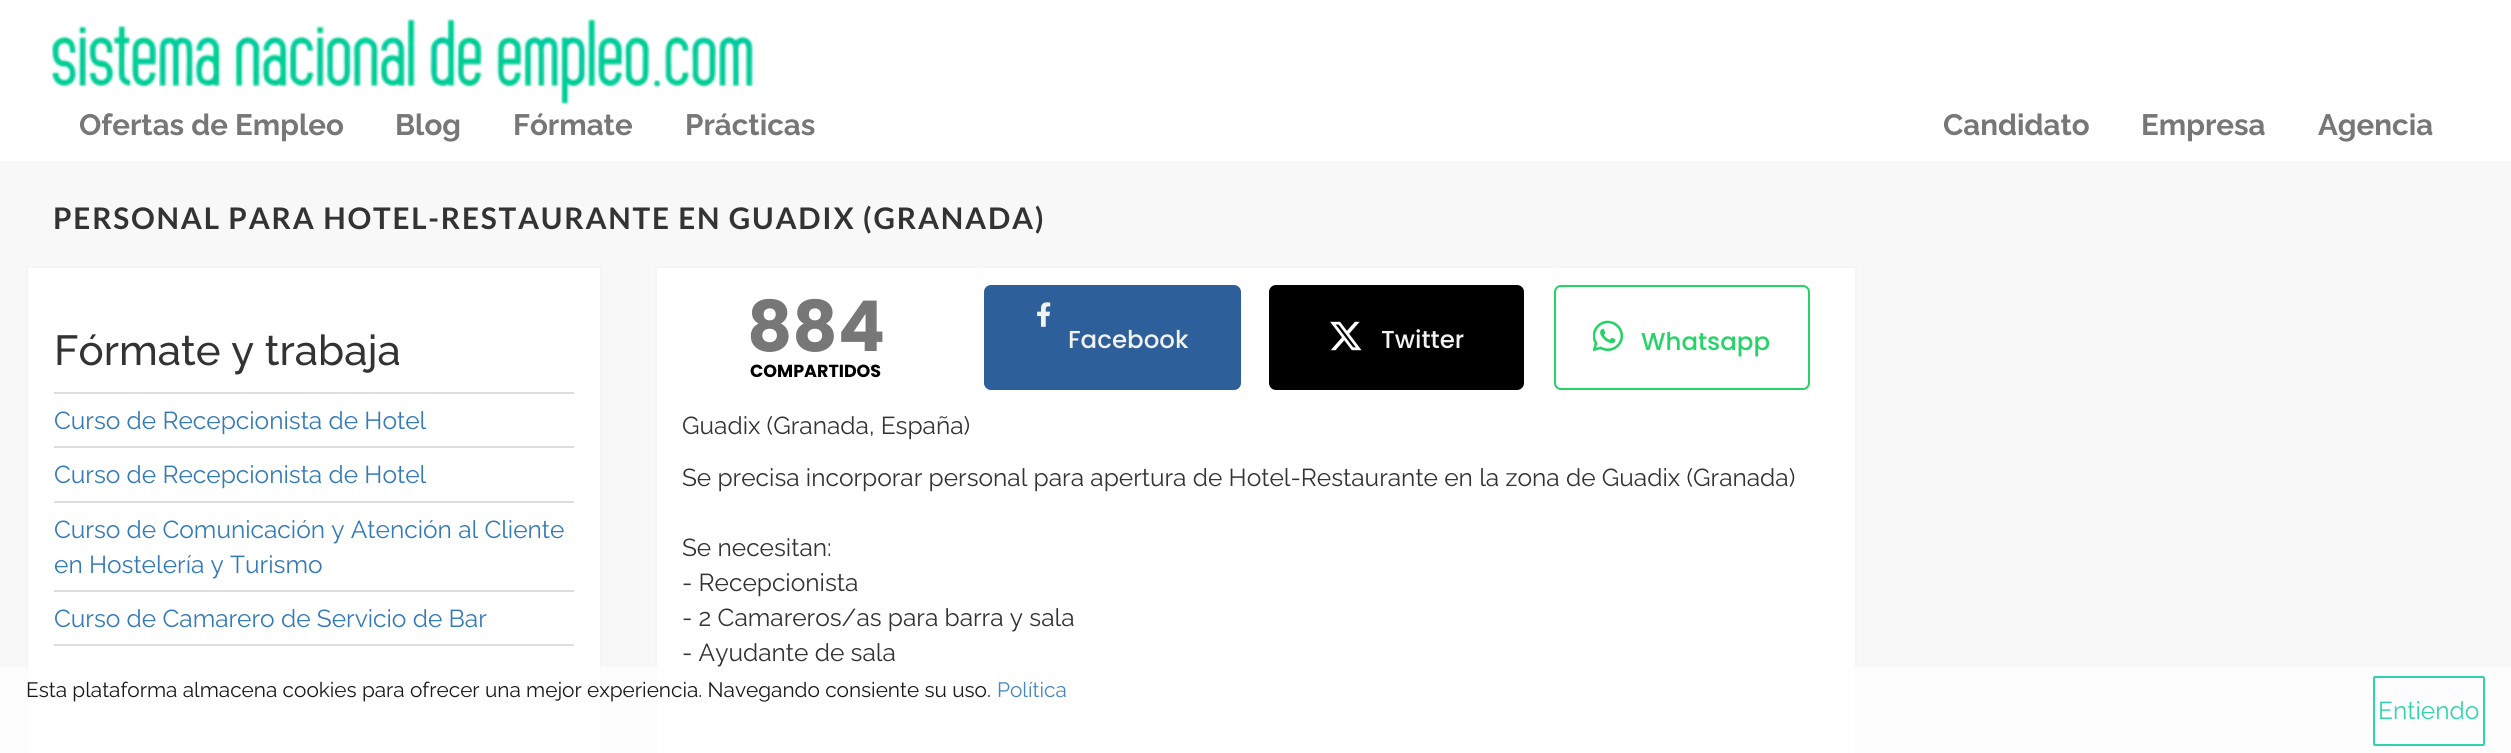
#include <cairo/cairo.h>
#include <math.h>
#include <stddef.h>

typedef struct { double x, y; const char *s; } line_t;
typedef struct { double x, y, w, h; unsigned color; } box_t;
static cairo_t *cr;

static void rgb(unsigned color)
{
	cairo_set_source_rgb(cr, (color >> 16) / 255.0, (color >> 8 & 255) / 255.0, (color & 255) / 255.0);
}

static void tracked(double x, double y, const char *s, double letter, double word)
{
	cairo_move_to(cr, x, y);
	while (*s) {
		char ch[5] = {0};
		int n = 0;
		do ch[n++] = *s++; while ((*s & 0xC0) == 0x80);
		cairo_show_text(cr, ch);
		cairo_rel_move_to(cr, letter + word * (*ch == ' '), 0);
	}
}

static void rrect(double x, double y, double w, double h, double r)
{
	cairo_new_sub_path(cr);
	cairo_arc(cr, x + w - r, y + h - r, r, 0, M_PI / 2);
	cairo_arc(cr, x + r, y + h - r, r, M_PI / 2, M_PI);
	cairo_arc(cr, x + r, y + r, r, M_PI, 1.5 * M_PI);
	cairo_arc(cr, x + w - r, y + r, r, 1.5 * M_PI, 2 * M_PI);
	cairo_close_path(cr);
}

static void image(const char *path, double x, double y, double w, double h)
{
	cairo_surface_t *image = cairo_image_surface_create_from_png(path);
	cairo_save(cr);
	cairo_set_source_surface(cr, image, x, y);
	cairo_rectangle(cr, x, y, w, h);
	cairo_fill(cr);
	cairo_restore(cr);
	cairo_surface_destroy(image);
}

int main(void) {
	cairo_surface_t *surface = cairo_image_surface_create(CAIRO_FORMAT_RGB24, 2511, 753);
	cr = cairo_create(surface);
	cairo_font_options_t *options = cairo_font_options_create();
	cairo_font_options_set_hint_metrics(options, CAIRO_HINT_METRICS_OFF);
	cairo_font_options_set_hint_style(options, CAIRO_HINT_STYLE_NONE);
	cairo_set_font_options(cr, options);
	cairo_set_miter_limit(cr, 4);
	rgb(0xf8f8f8);
	cairo_paint(cr);
	rgb(0xffffff);
	cairo_rectangle(cr, 0, 0, 2511, 161);
	cairo_fill(cr);
	image("img/1.png", 52, 18, 702, 87);
	cairo_rectangle(cr, 27, 267, 574, 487);
	cairo_fill_preserve(cr);
	rgb(0xf5f5f5);
	cairo_stroke(cr);
	{
		static const box_t items[] = {
			{54, 392, 520, 2, 0xdddddd},
			{54, 446, 520, 2, 0xdddddd},
			{54, 501, 520, 2, 0xdddddd},
			{54, 590, 520, 2, 0xdddddd},
			{54, 644, 520, 2, 0xdddddd},
		};
		for (size_t i = 0; i < sizeof items / sizeof *items; i++) {
			rgb(items[i].color);
			cairo_rectangle(cr, items[i].x, items[i].y, items[i].w, items[i].h);
			cairo_fill(cr);
		}
	}
	rgb(0xffffff);
	cairo_rectangle(cr, 656, 267, 1200, 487);
	cairo_fill_preserve(cr);
	rgb(0xf5f5f5);
	cairo_stroke(cr);
	rgb(0x2d5f9a);
	rrect(984, 285, 257, 105, 7);
	cairo_fill(cr);
	image("img/2.png", 1037, 302, 14, 25);
	rgb(0x000000);
	rrect(1269, 285, 255, 105, 7);
	cairo_fill(cr);
	image("img/3.png", 1330, 321, 32, 30);
	rrect(1555, 286, 254, 103, 6);
	rgb(0x25d366);
	cairo_stroke(cr);
	image("img/4.png", 1593, 320, 31, 32);
	cairo_set_source_rgba(cr, 1, 1, 1, 0.72);
	cairo_rectangle(cr, 0, 667, 2511, 86);
	cairo_fill(cr);
	rrect(2374, 677, 110, 68, 1);
	rgb(0x30d4ac);
	cairo_stroke(cr);
	cairo_select_font_face(cr, "Raleway", CAIRO_FONT_SLANT_NORMAL, CAIRO_FONT_WEIGHT_BOLD);
	cairo_set_font_size(cr, 29.5);
	rgb(0x777777);
	{
		static const line_t items[] = {
			{79, 135, "Ofertas de Empleo"},
			{395, 135, "Blog"},
			{513, 135, "Fórmate"},
			{685, 135, "Prácticas"},
			{1943, 135, "Candidato"},
			{2141, 135, "Empresa"},
			{2318, 135, "Agencia"},
		};
		for (size_t i = 0; i < sizeof items / sizeof *items; i++) {
			cairo_move_to(cr, items[i].x, items[i].y);
			cairo_show_text(cr, items[i].s);
		}
	}
	cairo_select_font_face(cr, "Lato", CAIRO_FONT_SLANT_NORMAL, CAIRO_FONT_WEIGHT_BOLD);
	cairo_set_font_size(cr, 29.75);
	rgb(0x333333);
	tracked(53, 229, "PERSONAL PARA HOTEL-RESTAURANTE EN GUADIX (GRANADA)", 1.75, 0);
	cairo_select_font_face(cr, "Raleway Medium", CAIRO_FONT_SLANT_NORMAL, CAIRO_FONT_WEIGHT_NORMAL);
	cairo_set_font_size(cr, 42);
	cairo_move_to(cr, 54, 365);
	cairo_show_text(cr, "Fórmate y trabaja");
	cairo_select_font_face(cr, "Raleway", CAIRO_FONT_SLANT_NORMAL, CAIRO_FONT_WEIGHT_NORMAL);
	cairo_set_font_size(cr, 24.5);
	rgb(0x337ab7);
	{
		static const line_t items[] = {
			{54, 429, "Curso de Recepcionista de Hotel"},
			{54, 483, "Curso de Recepcionista de Hotel"},
			{54, 538, "Curso de Comunicación y Atención al Cliente"},
			{54, 573, "en Hostelería y Turismo"},
			{54, 627, "Curso de Camarero de Servicio de Bar"},
		};
		for (size_t i = 0; i < sizeof items / sizeof *items; i++) {
			cairo_move_to(cr, items[i].x, items[i].y);
			cairo_show_text(cr, items[i].s);
		}
	}
	cairo_select_font_face(cr, "Poppins", CAIRO_FONT_SLANT_NORMAL, CAIRO_FONT_WEIGHT_BOLD);
	cairo_set_font_size(cr, 70);
	rgb(0x777777);
	cairo_move_to(cr, 747, 351);
	cairo_show_text(cr, "884");
	cairo_set_font_size(cr, 17.5);
	rgb(0x000000);
	cairo_move_to(cr, 750, 377);
	cairo_show_text(cr, "COMPARTIDOS");
	cairo_select_font_face(cr, "Poppins Medium", CAIRO_FONT_SLANT_NORMAL, CAIRO_FONT_WEIGHT_NORMAL);
	cairo_set_font_size(cr, 24.5);
	rgb(0xf2f2f2);
	cairo_move_to(cr, 1068, 348);
	cairo_show_text(cr, "Facebook");
	cairo_move_to(cr, 1381, 348);
	cairo_show_text(cr, "Twitter");
	rgb(0x25d366);
	cairo_move_to(cr, 1641, 350);
	cairo_show_text(cr, "Whatsapp");
	cairo_select_font_face(cr, "Raleway", CAIRO_FONT_SLANT_NORMAL, CAIRO_FONT_WEIGHT_NORMAL);
	rgb(0x333333);
	{
		static const line_t items[] = {
			{682, 434, "Guadix (Granada, España)"},
			{682, 486, "Se precisa incorporar personal para apertura de Hotel-Restaurante en la zona de Guadix (Granada)"},
			{682, 556, "Se necesitan:"},
			{682, 591, "- Recepcionista"},
			{682, 626, "- 2 Camareros/as para barra y sala"},
			{682, 661, "- Ayudante de sala"},
		};
		for (size_t i = 0; i < sizeof items / sizeof *items; i++) {
			cairo_move_to(cr, items[i].x, items[i].y);
			cairo_show_text(cr, items[i].s);
		}
	}
	cairo_set_font_size(cr, 20.8);
	rgb(0x191919);
	cairo_move_to(cr, 26, 697);
	cairo_show_text(cr, "Esta plataforma almacena cookies para ofrecer una mejor experiencia. Navegando consiente su uso.");
	rgb(0x4787be);
	cairo_move_to(cr, 997, 697);
	cairo_show_text(cr, "Política");
	cairo_set_font_size(cr, 24.5);
	rgb(0x30d4ac);
	cairo_move_to(cr, 2378, 719);
	cairo_show_text(cr, "Entiendo");
	cairo_surface_write_to_png(surface, "page.png");
	cairo_font_options_destroy(options);
	cairo_destroy(cr);
	cairo_surface_destroy(surface);
	return 0;
}
